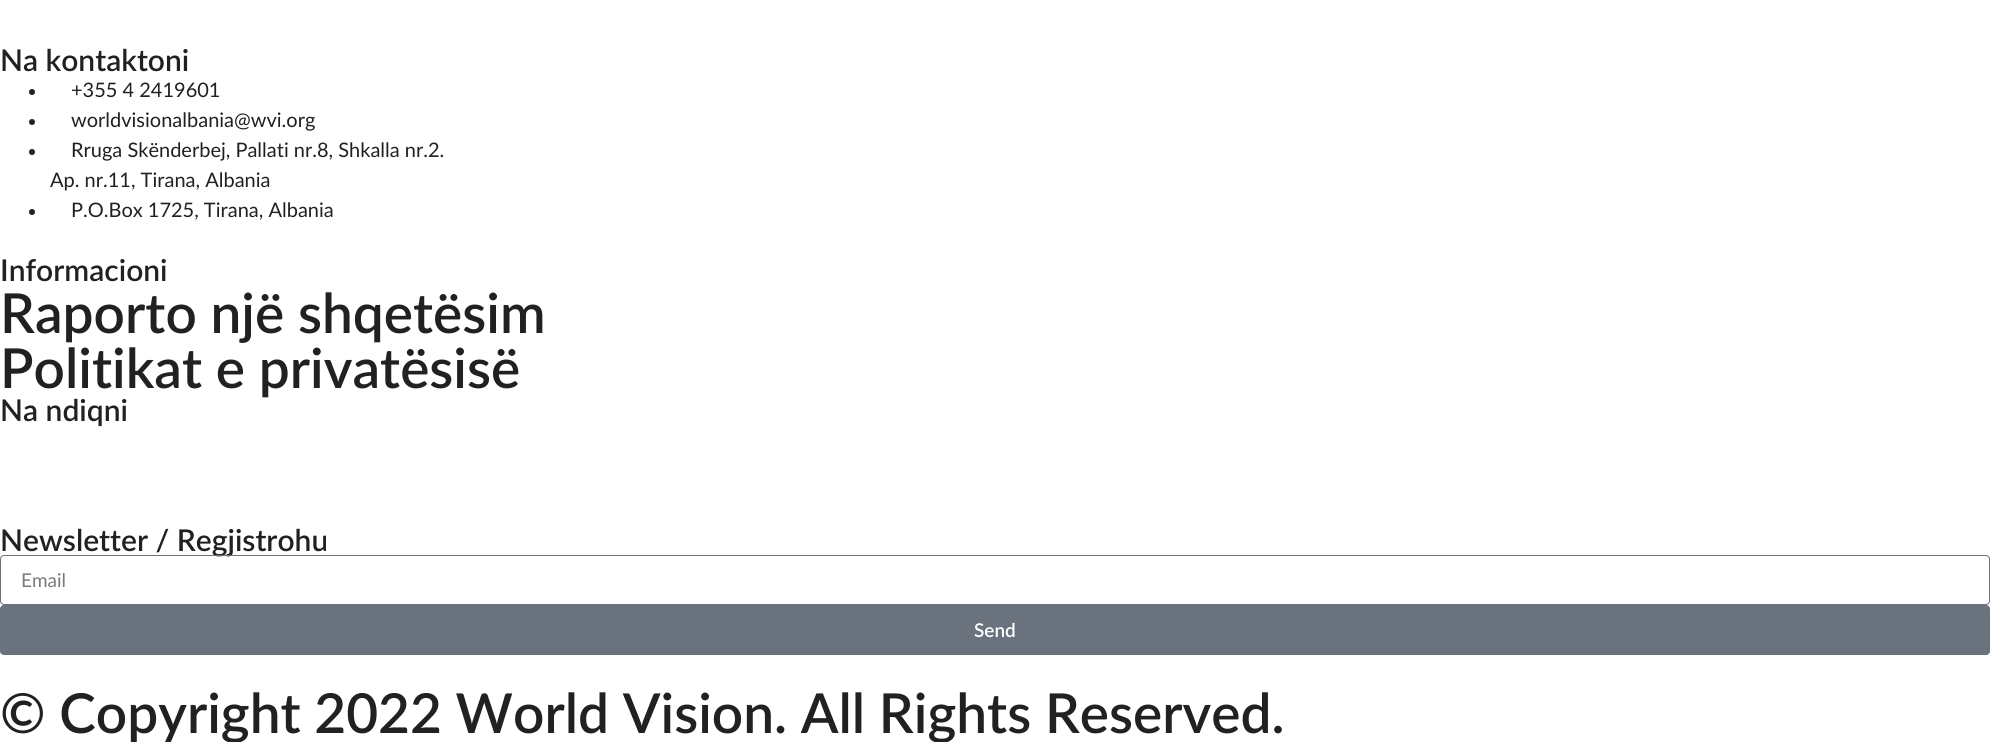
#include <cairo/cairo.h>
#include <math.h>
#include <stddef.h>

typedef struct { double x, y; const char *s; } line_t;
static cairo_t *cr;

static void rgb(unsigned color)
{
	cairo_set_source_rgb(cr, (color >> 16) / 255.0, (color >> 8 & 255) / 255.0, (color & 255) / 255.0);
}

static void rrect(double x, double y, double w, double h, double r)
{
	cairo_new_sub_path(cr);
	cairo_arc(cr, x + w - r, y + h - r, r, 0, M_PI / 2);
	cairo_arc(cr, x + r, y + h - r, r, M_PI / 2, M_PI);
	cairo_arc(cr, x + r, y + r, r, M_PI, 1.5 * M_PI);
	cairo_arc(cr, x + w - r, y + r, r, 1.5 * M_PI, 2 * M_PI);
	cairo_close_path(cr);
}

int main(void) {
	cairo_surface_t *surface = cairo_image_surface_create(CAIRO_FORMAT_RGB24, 1990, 742);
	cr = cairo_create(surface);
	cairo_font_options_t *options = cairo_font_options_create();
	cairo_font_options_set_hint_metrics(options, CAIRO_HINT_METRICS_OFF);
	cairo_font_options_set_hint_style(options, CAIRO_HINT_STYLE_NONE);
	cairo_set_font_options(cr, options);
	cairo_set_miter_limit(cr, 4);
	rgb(0xffffff);
	cairo_paint(cr);
	rgb(0x212121);
	cairo_arc(cr, 32, 92, 3, 0, 2 * M_PI);
	cairo_fill(cr);
	cairo_arc(cr, 32, 122, 3, 0, 2 * M_PI);
	cairo_fill(cr);
	cairo_arc(cr, 32, 152, 3, 0, 2 * M_PI);
	cairo_fill(cr);
	cairo_arc(cr, 32, 212, 3, 0, 2 * M_PI);
	cairo_fill(cr);
	rgb(0x69727d);
	rrect(0, 605, 1990, 50, 4);
	cairo_fill(cr);
	cairo_select_font_face(cr, "Lato SemiBold", CAIRO_FONT_SLANT_NORMAL, CAIRO_FONT_WEIGHT_NORMAL);
	cairo_set_font_size(cr, 30);
	rgb(0x212121);
	cairo_move_to(cr, 0, 71);
	cairo_show_text(cr, "Na kontaktoni");
	cairo_select_font_face(cr, "Lato", CAIRO_FONT_SLANT_NORMAL, CAIRO_FONT_WEIGHT_NORMAL);
	cairo_set_font_size(cr, 20);
	{
		static const line_t items[] = {
			{71, 97, "+355 4 2419601"},
			{71, 127, "worldvisionalbania@wvi.org"},
			{71, 157, "Rruga Skënderbej, Pallati nr.8, Shkalla nr.2."},
			{50, 187, "Ap. nr.11, Tirana, Albania"},
			{71, 217, "P.O.Box 1725, Tirana, Albania"},
		};
		for (size_t i = 0; i < sizeof items / sizeof *items; i++) {
			cairo_move_to(cr, items[i].x, items[i].y);
			cairo_show_text(cr, items[i].s);
		}
	}
	cairo_select_font_face(cr, "Lato SemiBold", CAIRO_FONT_SLANT_NORMAL, CAIRO_FONT_WEIGHT_NORMAL);
	cairo_set_font_size(cr, 30);
	cairo_move_to(cr, 0, 281);
	cairo_show_text(cr, "Informacioni");
	cairo_set_font_size(cr, 55);
	cairo_move_to(cr, 0, 333);
	cairo_show_text(cr, "Raporto një shqetësim");
	cairo_move_to(cr, 0, 388);
	cairo_show_text(cr, "Politikat e privatësisë");
	cairo_set_font_size(cr, 30);
	cairo_move_to(cr, 0, 421);
	cairo_show_text(cr, "Na ndiqni");
	cairo_move_to(cr, 0, 551);
	cairo_show_text(cr, "Newsletter / Regjistrohu");
	rrect(0.5, 555.5, 1989, 49, 3.5);
	rgb(0x69727d);
	cairo_set_line_width(cr, 1);
	cairo_stroke(cr);
	cairo_select_font_face(cr, "Lato", CAIRO_FONT_SLANT_NORMAL, CAIRO_FONT_WEIGHT_NORMAL);
	cairo_set_font_size(cr, 19);
	rgb(0x797a7c);
	cairo_move_to(cr, 21, 587);
	cairo_show_text(cr, "Email");
	cairo_select_font_face(cr, "Lato SemiBold", CAIRO_FONT_SLANT_NORMAL, CAIRO_FONT_WEIGHT_NORMAL);
	rgb(0xffffff);
	cairo_move_to(cr, 974, 637);
	cairo_show_text(cr, "Send");
	cairo_set_font_size(cr, 55);
	rgb(0x212121);
	cairo_move_to(cr, 0, 733);
	cairo_show_text(cr, "© Copyright 2022 World Vision. All Rights Reserved.");
	cairo_surface_write_to_png(surface, "page.png");
	cairo_font_options_destroy(options);
	cairo_destroy(cr);
	cairo_surface_destroy(surface);
	return 0;
}
